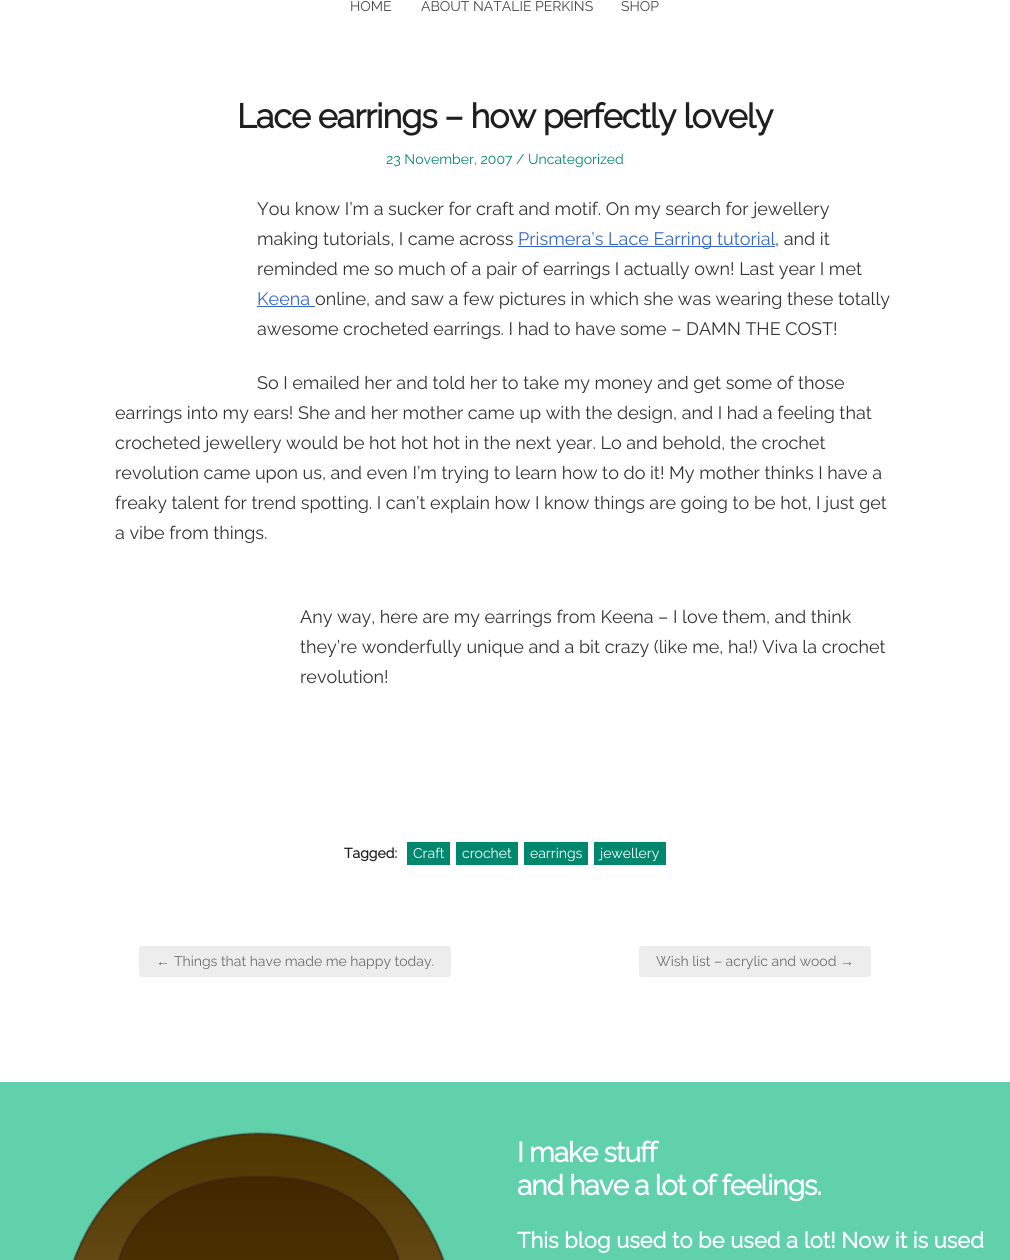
#include <cairo/cairo.h>
#include <math.h>
#include <stddef.h>

typedef struct { double x, y; const char *s; } line_t;
typedef struct { double x, y, w, h; unsigned color; } box_t;
static cairo_t *cr;

static void rgb(unsigned color)
{
	cairo_set_source_rgb(cr, (color >> 16) / 255.0, (color >> 8 & 255) / 255.0, (color & 255) / 255.0);
}

static void tracked(double x, double y, const char *s, double letter, double word)
{
	cairo_move_to(cr, x, y);
	while (*s) {
		char ch[5] = {0};
		int n = 0;
		do ch[n++] = *s++; while ((*s & 0xC0) == 0x80);
		cairo_show_text(cr, ch);
		cairo_rel_move_to(cr, letter + word * (*ch == ' '), 0);
	}
}

static void rrect(double x, double y, double w, double h, double r)
{
	cairo_new_sub_path(cr);
	cairo_arc(cr, x + w - r, y + h - r, r, 0, M_PI / 2);
	cairo_arc(cr, x + r, y + h - r, r, M_PI / 2, M_PI);
	cairo_arc(cr, x + r, y + r, r, M_PI, 1.5 * M_PI);
	cairo_arc(cr, x + w - r, y + r, r, 1.5 * M_PI, 2 * M_PI);
	cairo_close_path(cr);
}

static void image(const char *path, double x, double y, double w, double h)
{
	cairo_surface_t *image = cairo_image_surface_create_from_png(path);
	cairo_save(cr);
	cairo_set_source_surface(cr, image, x, y);
	cairo_rectangle(cr, x, y, w, h);
	cairo_fill(cr);
	cairo_restore(cr);
	cairo_surface_destroy(image);
}

int main(void) {
	cairo_surface_t *surface = cairo_image_surface_create(CAIRO_FORMAT_RGB24, 1010, 1260);
	cr = cairo_create(surface);
	cairo_font_options_t *options = cairo_font_options_create();
	cairo_font_options_set_hint_metrics(options, CAIRO_HINT_METRICS_OFF);
	cairo_font_options_set_hint_style(options, CAIRO_HINT_STYLE_NONE);
	cairo_set_font_options(cr, options);
	cairo_set_miter_limit(cr, 4);
	rgb(0xffffff);
	cairo_paint(cr);
	{
		static const box_t items[] = {
			{518, 246, 257, 1, 0x3366c8},
			{257, 306, 58, 1, 0x3366c8},
			{407, 842, 43, 23, 0x00876e},
			{456, 842, 62, 23, 0x00876e},
			{524, 842, 64, 23, 0x00876e},
			{594, 842, 72, 23, 0x00876e},
		};
		for (size_t i = 0; i < sizeof items / sizeof *items; i++) {
			rgb(items[i].color);
			cairo_rectangle(cr, items[i].x, items[i].y, items[i].w, items[i].h);
			cairo_fill(cr);
		}
	}
	rgb(0xededed);
	rrect(139, 946, 312, 31, 3);
	cairo_fill(cr);
	rrect(639, 946, 232, 31, 3);
	cairo_fill(cr);
	rgb(0x60d1ab);
	cairo_rectangle(cr, 0, 1082, 1010, 178);
	cairo_fill(cr);
	image("img/1.png", 72, 1132, 373, 128);
	cairo_select_font_face(cr, "Raleway", CAIRO_FONT_SLANT_NORMAL, CAIRO_FONT_WEIGHT_NORMAL);
	cairo_set_font_size(cr, 14);
	rgb(0x464646);
	{
		static const line_t items[] = {
			{350, 11, "HOME"},
			{421, 11, "ABOUT NATALIE PERKINS"},
			{621, 11, "SHOP"},
		};
		for (size_t i = 0; i < sizeof items / sizeof *items; i++) {
			cairo_move_to(cr, items[i].x, items[i].y);
			cairo_show_text(cr, items[i].s);
		}
	}
	cairo_select_font_face(cr, "Raleway", CAIRO_FONT_SLANT_NORMAL, CAIRO_FONT_WEIGHT_BOLD);
	cairo_set_font_size(cr, 34);
	rgb(0x1f1f1f);
	tracked(237, 128, "Lace earrings – how perfectly lovely", -1, 0);
	cairo_select_font_face(cr, "Raleway", CAIRO_FONT_SLANT_NORMAL, CAIRO_FONT_WEIGHT_NORMAL);
	cairo_set_font_size(cr, 14);
	rgb(0x00876e);
	cairo_move_to(cr, 386, 164);
	cairo_show_text(cr, "23 November, 2007 / Uncategorized");
	cairo_set_font_size(cr, 18);
	rgb(0x333333);
	cairo_move_to(cr, 257, 215);
	cairo_show_text(cr, "You know I’m a sucker for craft and motif. On my search for jewellery");
	cairo_move_to(cr, 257, 245);
	cairo_show_text(cr, "making tutorials, I came across");
	rgb(0x3366c8);
	cairo_move_to(cr, 518, 245);
	cairo_show_text(cr, "Prismera’s Lace Earring tutorial");
	rgb(0x333333);
	cairo_move_to(cr, 775, 245);
	cairo_show_text(cr, ", and it");
	cairo_move_to(cr, 257, 275);
	cairo_show_text(cr, "reminded me so much of a pair of earrings I actually own! Last year I met");
	rgb(0x3366c8);
	cairo_move_to(cr, 257, 305);
	cairo_show_text(cr, "Keena");
	rgb(0x333333);
	{
		static const line_t items[] = {
			{315, 305, "online, and saw a few pictures in which she was wearing these totally"},
			{257, 335, "awesome crocheted earrings. I had to have some – DAMN THE COST!"},
			{257, 389, "So I emailed her and told her to take my money and get some of those"},
			{115, 419, "earrings into my ears! She and her mother came up with the design, and I had a feeling that"},
			{115, 449, "crocheted jewellery would be hot hot hot in the next year. Lo and behold, the crochet"},
			{115, 479, "revolution came upon us, and even I’m trying to learn how to do it! My mother thinks I have a"},
			{115, 509, "freaky talent for trend spotting. I can’t explain how I know things are going to be hot, I just get"},
			{115, 539, "a vibe from things."},
			{300, 623, "Any way, here are my earrings from Keena – I love them, and think"},
			{300, 653, "they’re wonderfully unique and a bit crazy (like me, ha!) Viva la crochet"},
			{300, 683, "revolution!"},
		};
		for (size_t i = 0; i < sizeof items / sizeof *items; i++) {
			cairo_move_to(cr, items[i].x, items[i].y);
			cairo_show_text(cr, items[i].s);
		}
	}
	cairo_select_font_face(cr, "Raleway", CAIRO_FONT_SLANT_NORMAL, CAIRO_FONT_WEIGHT_BOLD);
	cairo_set_font_size(cr, 14);
	rgb(0x1f1f1f);
	cairo_move_to(cr, 344, 858);
	cairo_show_text(cr, "Tagged:");
	cairo_select_font_face(cr, "Raleway", CAIRO_FONT_SLANT_NORMAL, CAIRO_FONT_WEIGHT_NORMAL);
	rgb(0xffffff);
	{
		static const line_t items[] = {
			{413, 858, "Craft"},
			{462, 858, "crochet"},
			{530, 858, "earrings"},
			{600, 858, "jewellery"},
		};
		for (size_t i = 0; i < sizeof items / sizeof *items; i++) {
			cairo_move_to(cr, items[i].x, items[i].y);
			cairo_show_text(cr, items[i].s);
		}
	}
	cairo_select_font_face(cr, "Liberation Sans", CAIRO_FONT_SLANT_NORMAL, CAIRO_FONT_WEIGHT_NORMAL);
	rgb(0x6e6e6e);
	cairo_move_to(cr, 156, 966);
	cairo_show_text(cr, "←");
	cairo_select_font_face(cr, "Raleway", CAIRO_FONT_SLANT_NORMAL, CAIRO_FONT_WEIGHT_NORMAL);
	cairo_move_to(cr, 174, 966);
	cairo_show_text(cr, "Things that have made me happy today.");
	cairo_move_to(cr, 656, 966);
	cairo_show_text(cr, "Wish list – acrylic and wood");
	cairo_select_font_face(cr, "Liberation Sans", CAIRO_FONT_SLANT_NORMAL, CAIRO_FONT_WEIGHT_NORMAL);
	cairo_move_to(cr, 840, 966);
	cairo_show_text(cr, "→");
	cairo_select_font_face(cr, "Raleway", CAIRO_FONT_SLANT_NORMAL, CAIRO_FONT_WEIGHT_BOLD);
	cairo_set_font_size(cr, 28);
	rgb(0xffffff);
	tracked(517, 1162, "I make stuff", -1, 0);
	tracked(517, 1195, "and have a lot of feelings.", -1, 0);
	cairo_set_font_size(cr, 22);
	cairo_move_to(cr, 517, 1248);
	cairo_show_text(cr, "This blog used to be used a lot! Now it is used");
	cairo_surface_write_to_png(surface, "page.png");
	cairo_font_options_destroy(options);
	cairo_destroy(cr);
	cairo_surface_destroy(surface);
	return 0;
}
